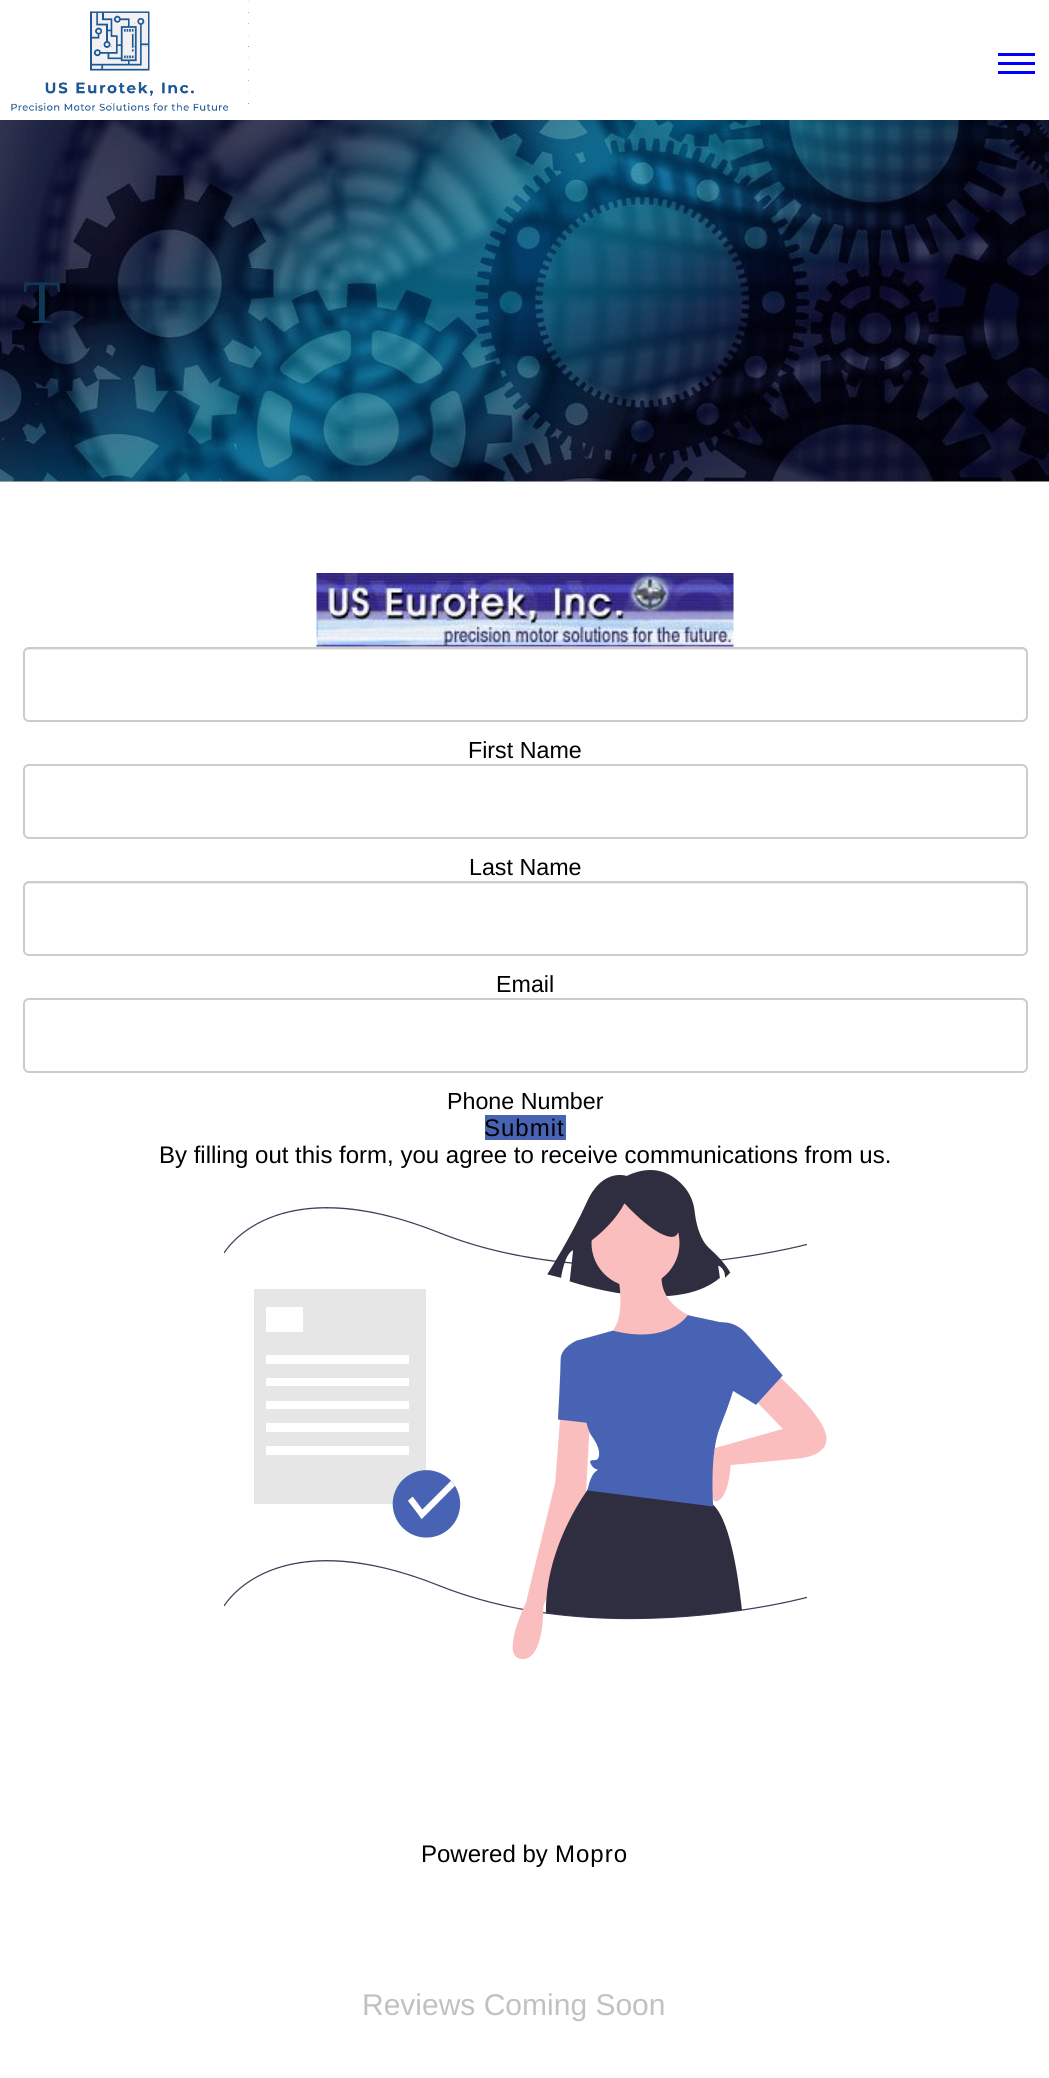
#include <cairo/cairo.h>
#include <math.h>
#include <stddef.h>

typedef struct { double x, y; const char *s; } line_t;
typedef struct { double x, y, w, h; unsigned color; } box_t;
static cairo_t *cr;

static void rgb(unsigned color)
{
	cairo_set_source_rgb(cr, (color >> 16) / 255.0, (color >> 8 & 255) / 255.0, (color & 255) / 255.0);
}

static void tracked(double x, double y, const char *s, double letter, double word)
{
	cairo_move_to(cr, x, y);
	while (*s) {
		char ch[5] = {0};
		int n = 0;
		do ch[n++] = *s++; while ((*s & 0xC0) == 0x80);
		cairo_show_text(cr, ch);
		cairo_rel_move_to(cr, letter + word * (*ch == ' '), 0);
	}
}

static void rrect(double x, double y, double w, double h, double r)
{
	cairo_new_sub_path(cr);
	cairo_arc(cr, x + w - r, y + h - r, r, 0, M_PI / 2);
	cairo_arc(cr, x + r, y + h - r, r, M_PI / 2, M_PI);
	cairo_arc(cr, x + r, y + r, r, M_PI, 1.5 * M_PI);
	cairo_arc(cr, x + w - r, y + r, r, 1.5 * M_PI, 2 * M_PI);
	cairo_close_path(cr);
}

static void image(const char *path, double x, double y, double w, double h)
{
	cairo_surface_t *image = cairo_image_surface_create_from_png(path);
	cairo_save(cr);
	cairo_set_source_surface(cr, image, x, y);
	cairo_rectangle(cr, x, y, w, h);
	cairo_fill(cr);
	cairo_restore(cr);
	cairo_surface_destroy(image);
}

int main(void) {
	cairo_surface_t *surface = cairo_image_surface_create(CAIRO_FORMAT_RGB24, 1049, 2078);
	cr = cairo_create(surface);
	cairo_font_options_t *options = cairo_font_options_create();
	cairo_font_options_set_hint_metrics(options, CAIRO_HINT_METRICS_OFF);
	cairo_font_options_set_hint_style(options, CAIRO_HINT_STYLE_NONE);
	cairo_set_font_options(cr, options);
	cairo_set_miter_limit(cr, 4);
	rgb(0xffffff);
	cairo_paint(cr);
	rgb(0xb3b3b3);
	cairo_rectangle(cr, 0, 481, 1049, 1);
	cairo_fill(cr);
	image("img/1.png", 11, 0, 238, 111);
	{
		static const box_t items[] = {
			{998, 53, 37, 3, 0x0000ff},
			{998, 62, 37, 3, 0x0000ff},
			{998, 71, 37, 3, 0x0000ff},
		};
		for (size_t i = 0; i < sizeof items / sizeof *items; i++) {
			rgb(items[i].color);
			cairo_rectangle(cr, items[i].x, items[i].y, items[i].w, items[i].h);
			cairo_fill(cr);
		}
	}
	image("img/2.png", 0, 120, 1049, 362);
	image("img/3.png", 316, 573, 418, 74);
	rgb(0xececec);
	cairo_new_path(cr);
	cairo_move_to(cr, 28, 650);
	cairo_line_to(cr, 1022, 650);
	cairo_curve_to(cr, 1024, 650, 1026, 652, 1026, 654);
	cairo_curve_to(cr, 1026, 651, 1024, 648, 1021, 648);
	cairo_line_to(cr, 29, 648);
	cairo_curve_to(cr, 26, 648, 24, 651, 24, 654);
	cairo_curve_to(cr, 24, 652, 26, 650, 28, 650);
	cairo_close_path(cr);
	cairo_fill(cr);
	rrect(24, 648, 1003, 73, 5);
	rgb(0xcccccc);
	cairo_stroke(cr);
	rgb(0xececec);
	cairo_new_path(cr);
	cairo_move_to(cr, 28, 766);
	cairo_line_to(cr, 1022, 766);
	cairo_curve_to(cr, 1024, 766, 1026, 769, 1026, 771);
	cairo_curve_to(cr, 1026, 768, 1024, 765, 1021, 765);
	cairo_line_to(cr, 29, 765);
	cairo_curve_to(cr, 26, 765, 24, 768, 24, 771);
	cairo_curve_to(cr, 24, 769, 26, 766, 28, 766);
	cairo_close_path(cr);
	cairo_fill(cr);
	rrect(24, 765, 1003, 73, 5);
	rgb(0xcccccc);
	cairo_stroke(cr);
	rgb(0xececec);
	cairo_new_path(cr);
	cairo_move_to(cr, 28, 884);
	cairo_line_to(cr, 1022, 884);
	cairo_curve_to(cr, 1024, 884, 1026, 886, 1026, 888);
	cairo_curve_to(cr, 1026, 885, 1024, 882, 1021, 882);
	cairo_line_to(cr, 29, 882);
	cairo_curve_to(cr, 26, 882, 24, 885, 24, 888);
	cairo_curve_to(cr, 24, 886, 26, 884, 28, 884);
	cairo_close_path(cr);
	cairo_fill(cr);
	rrect(24, 882, 1003, 73, 5);
	rgb(0xcccccc);
	cairo_stroke(cr);
	rgb(0xececec);
	cairo_new_path(cr);
	cairo_move_to(cr, 28, 1000);
	cairo_line_to(cr, 1022, 1000);
	cairo_curve_to(cr, 1024, 1000, 1026, 1003, 1026, 1005);
	cairo_curve_to(cr, 1026, 1002, 1024, 999, 1021, 999);
	cairo_line_to(cr, 29, 999);
	cairo_curve_to(cr, 26, 999, 24, 1002, 24, 1005);
	cairo_curve_to(cr, 24, 1003, 26, 1000, 28, 1000);
	cairo_close_path(cr);
	cairo_fill(cr);
	rrect(24, 999, 1003, 73, 5);
	rgb(0xcccccc);
	cairo_stroke(cr);
	rgb(0x4863b4);
	cairo_rectangle(cr, 485, 1115, 81, 25);
	cairo_fill(cr);
	image("img/4.png", 224, 1170, 603, 489);
	cairo_select_font_face(cr, "Liberation Serif", CAIRO_FONT_SLANT_NORMAL, CAIRO_FONT_WEIGHT_NORMAL);
	cairo_set_font_size(cr, 62);
	rgb(0x0f3854);
	cairo_move_to(cr, 23, 323);
	cairo_show_text(cr, "T");
	cairo_select_font_face(cr, "Liberation Sans", CAIRO_FONT_SLANT_NORMAL, CAIRO_FONT_WEIGHT_NORMAL);
	cairo_set_font_size(cr, 23.25);
	rgb(0x000000);
	{
		static const line_t items[] = {
			{468, 758, "First Name"},
			{469, 875, "Last Name"},
			{496, 992, "Email"},
			{447, 1109, "Phone Number"},
		};
		for (size_t i = 0; i < sizeof items / sizeof *items; i++) {
			cairo_move_to(cr, items[i].x, items[i].y);
			cairo_show_text(cr, items[i].s);
		}
	}
	cairo_set_font_size(cr, 24);
	tracked(484, 1136, "Submit", 1, 0);
	cairo_move_to(cr, 159, 1163);
	cairo_show_text(cr, "By filling out this form, you agree to receive communications from us.");
	cairo_move_to(cr, 421, 1862);
	cairo_show_text(cr, "Powered by");
	tracked(555, 1862, "Mopro", 1, 0);
	cairo_set_font_size(cr, 30);
	rgb(0xc1c1c1);
	cairo_move_to(cr, 362, 2015);
	cairo_show_text(cr, "Reviews Coming Soon");
	cairo_surface_write_to_png(surface, "page.png");
	cairo_font_options_destroy(options);
	cairo_destroy(cr);
	cairo_surface_destroy(surface);
	return 0;
}
